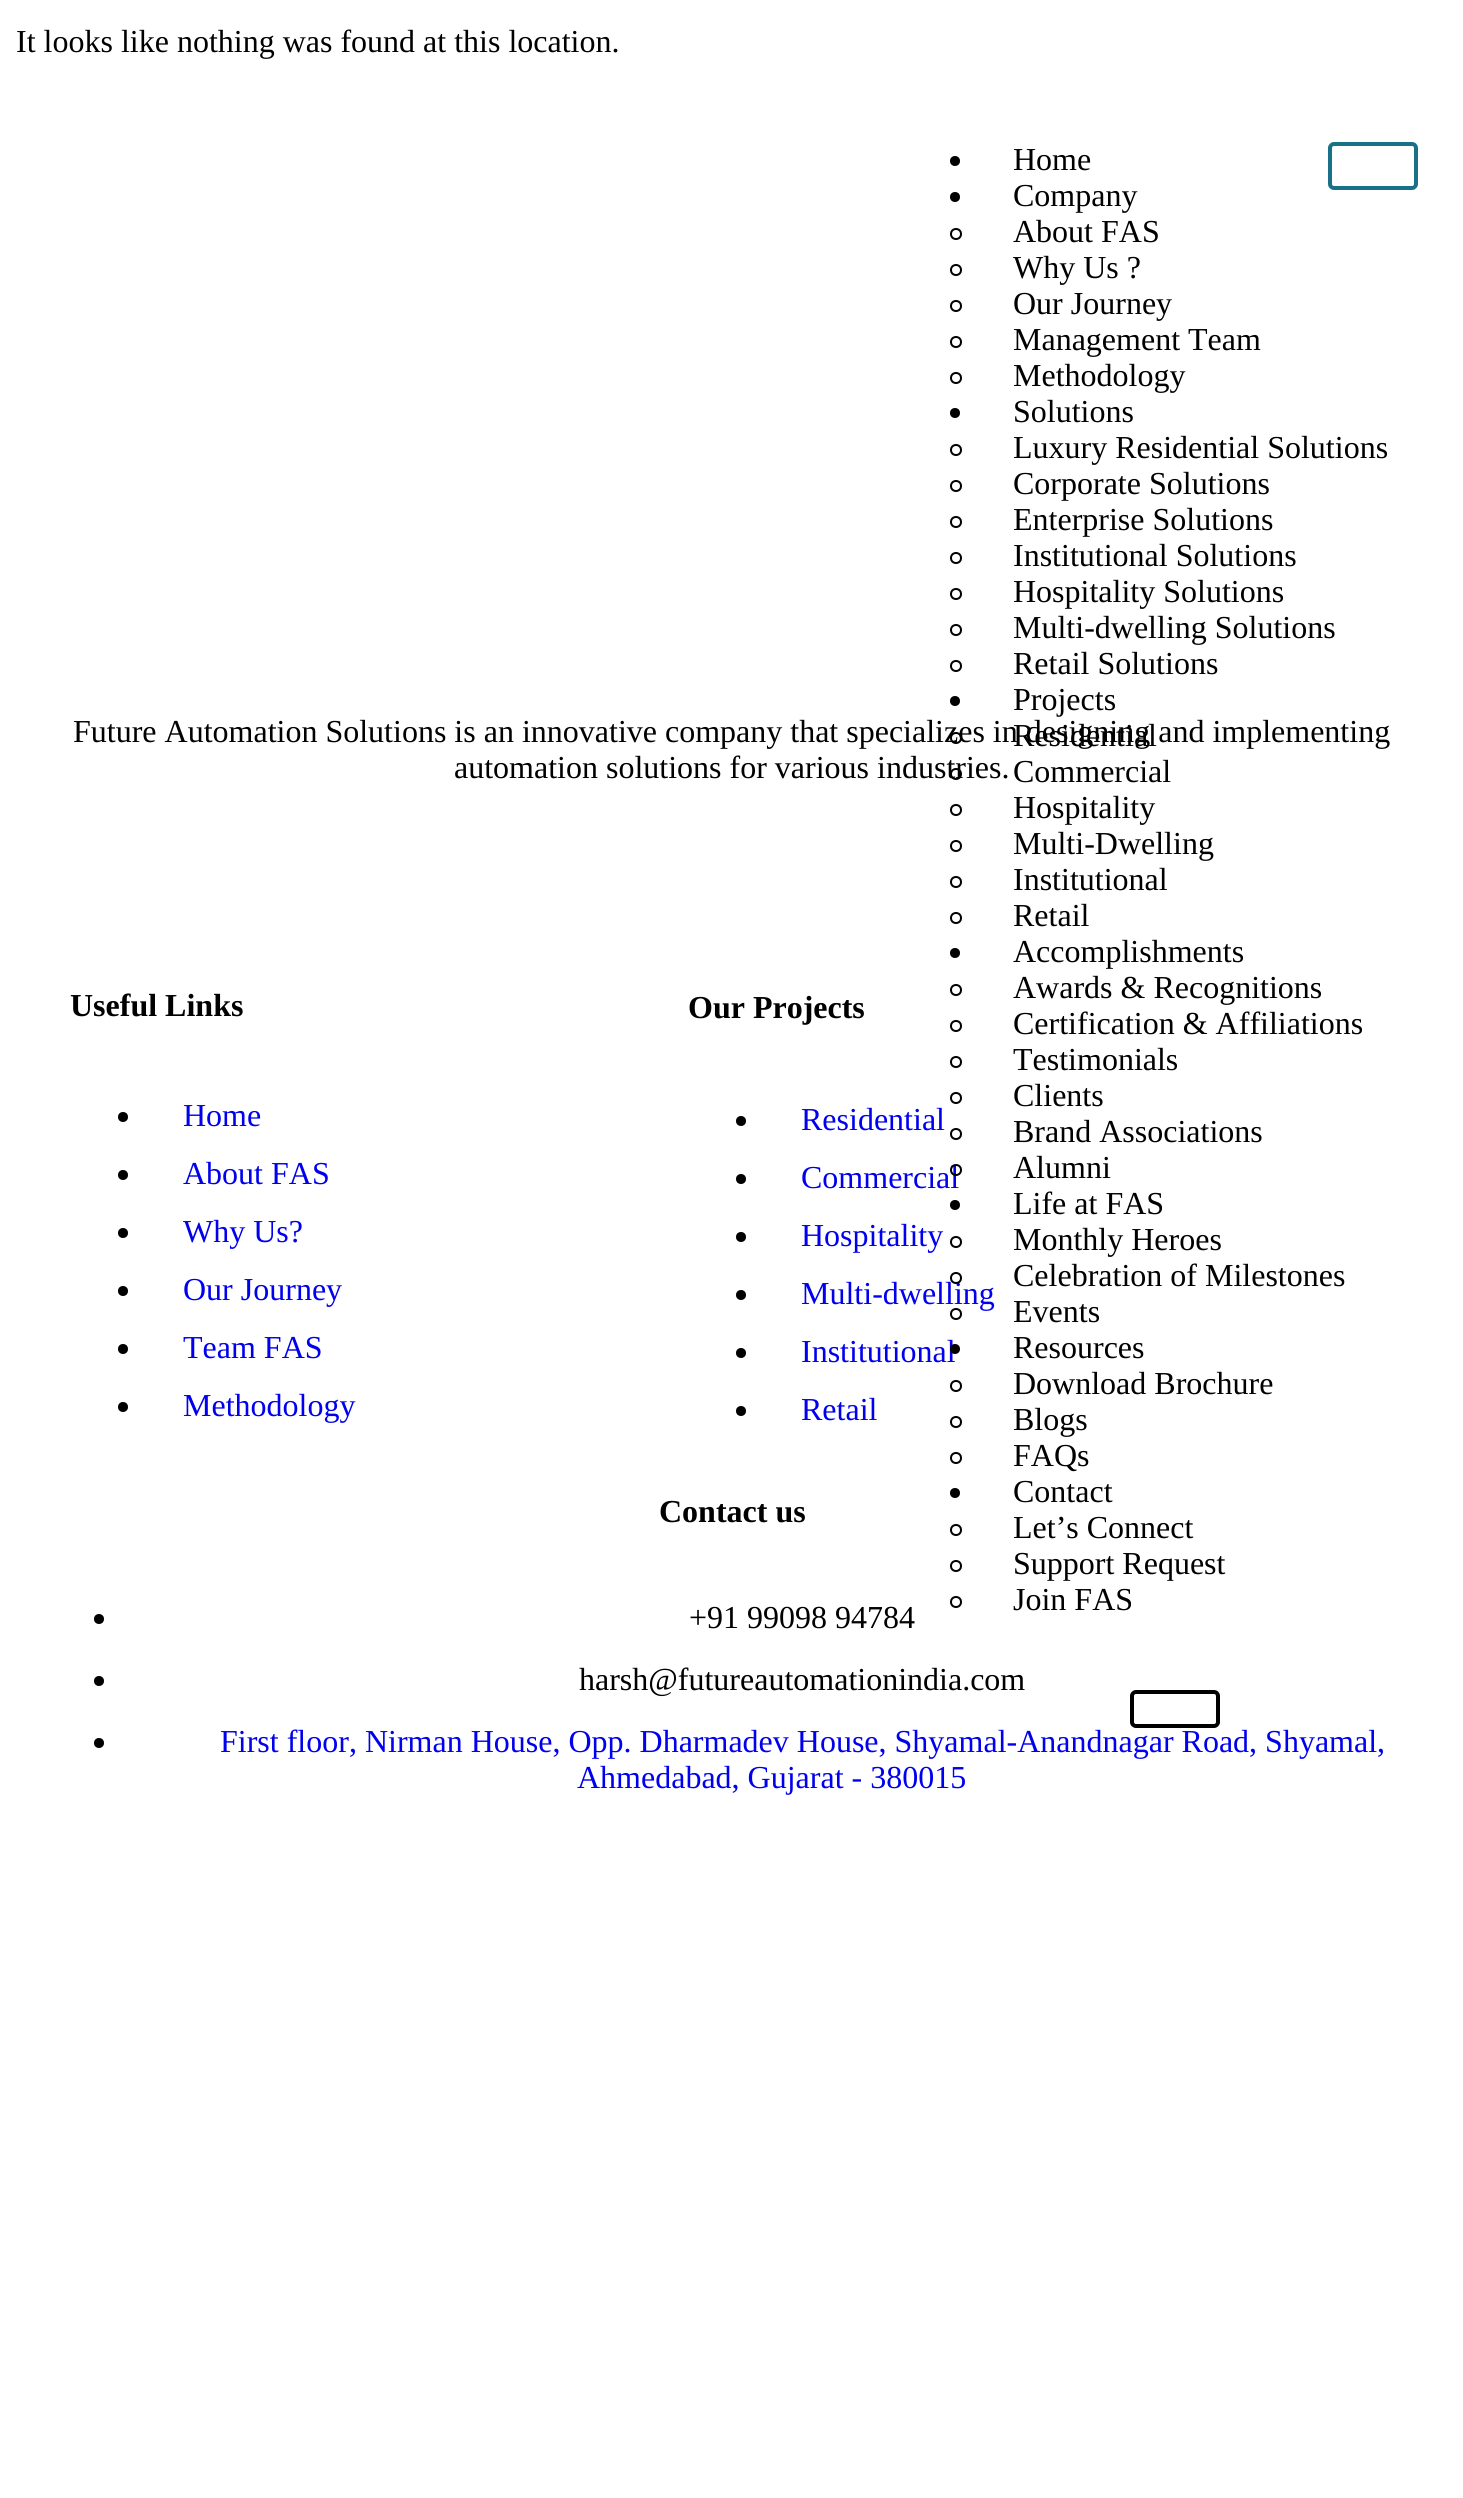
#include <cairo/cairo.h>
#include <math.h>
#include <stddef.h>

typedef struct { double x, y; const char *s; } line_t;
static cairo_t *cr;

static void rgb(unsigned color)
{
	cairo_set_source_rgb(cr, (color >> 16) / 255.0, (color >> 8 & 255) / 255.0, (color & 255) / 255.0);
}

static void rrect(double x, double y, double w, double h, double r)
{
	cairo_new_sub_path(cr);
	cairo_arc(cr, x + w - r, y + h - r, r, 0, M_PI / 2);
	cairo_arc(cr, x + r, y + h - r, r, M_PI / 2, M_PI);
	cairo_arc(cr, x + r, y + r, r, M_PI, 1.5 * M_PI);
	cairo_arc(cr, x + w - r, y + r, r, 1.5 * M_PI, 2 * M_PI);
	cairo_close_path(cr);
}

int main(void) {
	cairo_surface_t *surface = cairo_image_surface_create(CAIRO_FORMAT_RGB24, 1463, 2498);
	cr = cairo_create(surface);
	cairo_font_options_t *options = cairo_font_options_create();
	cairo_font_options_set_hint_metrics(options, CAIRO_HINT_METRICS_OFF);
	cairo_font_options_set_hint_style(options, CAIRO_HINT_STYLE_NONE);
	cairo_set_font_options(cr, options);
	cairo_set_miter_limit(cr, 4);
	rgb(0xffffff);
	cairo_paint(cr);
	rrect(1330, 144, 86, 44, 4);
	rgb(0x197188);
	cairo_set_line_width(cr, 4);
	cairo_stroke(cr);
	rgb(0x000000);
	cairo_arc(cr, 955, 161, 5, 0, 2 * M_PI);
	cairo_fill(cr);
	cairo_arc(cr, 955, 197, 5, 0, 2 * M_PI);
	cairo_fill(cr);
	cairo_arc(cr, 956, 234, 5, 0, 2 * M_PI);
	cairo_set_line_width(cr, 2);
	cairo_stroke(cr);
	cairo_arc(cr, 956, 270, 5, 0, 2 * M_PI);
	cairo_stroke(cr);
	cairo_arc(cr, 956, 306, 5, 0, 2 * M_PI);
	cairo_stroke(cr);
	cairo_arc(cr, 956, 342, 5, 0, 2 * M_PI);
	cairo_stroke(cr);
	cairo_arc(cr, 956, 378, 5, 0, 2 * M_PI);
	cairo_stroke(cr);
	cairo_arc(cr, 955, 413, 5, 0, 2 * M_PI);
	cairo_fill(cr);
	cairo_arc(cr, 956, 450, 5, 0, 2 * M_PI);
	cairo_stroke(cr);
	cairo_arc(cr, 956, 486, 5, 0, 2 * M_PI);
	cairo_stroke(cr);
	cairo_arc(cr, 956, 522, 5, 0, 2 * M_PI);
	cairo_stroke(cr);
	cairo_arc(cr, 956, 558, 5, 0, 2 * M_PI);
	cairo_stroke(cr);
	cairo_arc(cr, 956, 594, 5, 0, 2 * M_PI);
	cairo_stroke(cr);
	cairo_arc(cr, 956, 630, 5, 0, 2 * M_PI);
	cairo_stroke(cr);
	cairo_arc(cr, 956, 666, 5, 0, 2 * M_PI);
	cairo_stroke(cr);
	cairo_arc(cr, 955, 701, 5, 0, 2 * M_PI);
	cairo_fill(cr);
	cairo_arc(cr, 956, 738, 5, 0, 2 * M_PI);
	cairo_stroke(cr);
	cairo_arc(cr, 956, 774, 5, 0, 2 * M_PI);
	cairo_stroke(cr);
	cairo_arc(cr, 956, 810, 5, 0, 2 * M_PI);
	cairo_stroke(cr);
	cairo_arc(cr, 956, 846, 5, 0, 2 * M_PI);
	cairo_stroke(cr);
	cairo_arc(cr, 956, 882, 5, 0, 2 * M_PI);
	cairo_stroke(cr);
	cairo_arc(cr, 956, 918, 5, 0, 2 * M_PI);
	cairo_stroke(cr);
	cairo_arc(cr, 955, 953, 5, 0, 2 * M_PI);
	cairo_fill(cr);
	cairo_arc(cr, 956, 990, 5, 0, 2 * M_PI);
	cairo_stroke(cr);
	cairo_arc(cr, 956, 1026, 5, 0, 2 * M_PI);
	cairo_stroke(cr);
	cairo_arc(cr, 956, 1062, 5, 0, 2 * M_PI);
	cairo_stroke(cr);
	cairo_arc(cr, 956, 1098, 5, 0, 2 * M_PI);
	cairo_stroke(cr);
	cairo_arc(cr, 956, 1134, 5, 0, 2 * M_PI);
	cairo_stroke(cr);
	cairo_arc(cr, 955, 1205, 5, 0, 2 * M_PI);
	cairo_fill(cr);
	cairo_arc(cr, 956, 1242, 5, 0, 2 * M_PI);
	cairo_stroke(cr);
	cairo_arc(cr, 956, 1386, 5, 0, 2 * M_PI);
	cairo_stroke(cr);
	cairo_arc(cr, 956, 1422, 5, 0, 2 * M_PI);
	cairo_stroke(cr);
	cairo_arc(cr, 956, 1458, 5, 0, 2 * M_PI);
	cairo_stroke(cr);
	cairo_arc(cr, 955, 1493, 5, 0, 2 * M_PI);
	cairo_fill(cr);
	cairo_arc(cr, 956, 1530, 5, 0, 2 * M_PI);
	cairo_stroke(cr);
	cairo_arc(cr, 956, 1566, 5, 0, 2 * M_PI);
	cairo_stroke(cr);
	cairo_arc(cr, 956, 1602, 5, 0, 2 * M_PI);
	cairo_stroke(cr);
	rrect(1132, 1692, 86, 34, 4);
	cairo_set_line_width(cr, 4);
	cairo_stroke(cr);
	cairo_arc(cr, 123, 1117, 5, 0, 2 * M_PI);
	cairo_fill(cr);
	cairo_arc(cr, 123, 1175, 5, 0, 2 * M_PI);
	cairo_fill(cr);
	cairo_arc(cr, 123, 1233, 5, 0, 2 * M_PI);
	cairo_fill(cr);
	cairo_arc(cr, 123, 1291, 5, 0, 2 * M_PI);
	cairo_fill(cr);
	cairo_arc(cr, 123, 1349, 5, 0, 2 * M_PI);
	cairo_fill(cr);
	cairo_arc(cr, 123, 1407, 5, 0, 2 * M_PI);
	cairo_fill(cr);
	cairo_arc(cr, 741, 1121, 5, 0, 2 * M_PI);
	cairo_fill(cr);
	cairo_arc(cr, 741, 1179, 5, 0, 2 * M_PI);
	cairo_fill(cr);
	cairo_arc(cr, 741, 1237, 5, 0, 2 * M_PI);
	cairo_fill(cr);
	cairo_arc(cr, 741, 1295, 5, 0, 2 * M_PI);
	cairo_fill(cr);
	cairo_arc(cr, 741, 1353, 5, 0, 2 * M_PI);
	cairo_fill(cr);
	cairo_arc(cr, 741, 1411, 5, 0, 2 * M_PI);
	cairo_fill(cr);
	cairo_arc(cr, 99, 1619, 5, 0, 2 * M_PI);
	cairo_fill(cr);
	cairo_arc(cr, 99, 1681, 5, 0, 2 * M_PI);
	cairo_fill(cr);
	cairo_arc(cr, 99, 1743, 5, 0, 2 * M_PI);
	cairo_fill(cr);
	cairo_select_font_face(cr, "Liberation Serif", CAIRO_FONT_SLANT_NORMAL, CAIRO_FONT_WEIGHT_NORMAL);
	cairo_set_font_size(cr, 32);
	{
		static const line_t items[] = {
			{16, 52, "It looks like nothing was found at this location."},
			{1013, 170, "Home"},
			{1013, 206, "Company"},
			{1013, 242, "About FAS"},
			{1013, 278, "Why Us ?"},
			{1013, 314, "Our Journey"},
			{1013, 350, "Management Team"},
			{1013, 386, "Methodology"},
			{1013, 422, "Solutions"},
			{1013, 458, "Luxury Residential Solutions"},
			{1013, 494, "Corporate Solutions"},
			{1013, 530, "Enterprise Solutions"},
			{1013, 566, "Institutional Solutions"},
			{1013, 602, "Hospitality Solutions"},
			{1013, 638, "Multi-dwelling Solutions"},
			{1013, 674, "Retail Solutions"},
			{1013, 710, "Projects"},
			{1013, 782, "Commercial"},
			{1013, 818, "Hospitality"},
			{1013, 854, "Multi-Dwelling"},
			{1013, 890, "Institutional"},
			{1013, 926, "Retail"},
			{1013, 962, "Accomplishments"},
			{1013, 998, "Awards & Recognitions"},
			{1013, 1034, "Certification & Affiliations"},
			{1013, 1070, "Testimonials"},
			{1013, 1106, "Clients"},
			{1013, 1142, "Brand Associations"},
			{1013, 1178, "Alumni"},
			{1013, 1214, "Life at FAS"},
			{1013, 1250, "Monthly Heroes"},
			{1013, 1286, "Celebration of Milestones"},
			{1013, 1322, "Events"},
			{1013, 1358, "Resources"},
			{1013, 1394, "Download Brochure"},
			{1013, 1430, "Blogs"},
			{1013, 1466, "FAQs"},
			{1013, 1502, "Contact"},
			{1013, 1538, "Let’s Connect"},
			{1013, 1574, "Support Request"},
			{1013, 1610, "Join FAS"},
			{73, 742, "Future Automation Solutions is an innovative company that specializes in designing and implementing"},
			{1013, 746, "Residential"},
			{454, 778, "automation solutions for various industries."},
		};
		for (size_t i = 0; i < sizeof items / sizeof *items; i++) {
			cairo_move_to(cr, items[i].x, items[i].y);
			cairo_show_text(cr, items[i].s);
		}
	}
	cairo_select_font_face(cr, "Liberation Serif", CAIRO_FONT_SLANT_NORMAL, CAIRO_FONT_WEIGHT_BOLD);
	cairo_move_to(cr, 70, 1016);
	cairo_show_text(cr, "Useful Links");
	cairo_select_font_face(cr, "Liberation Serif", CAIRO_FONT_SLANT_NORMAL, CAIRO_FONT_WEIGHT_NORMAL);
	rgb(0x0000ee);
	{
		static const line_t items[] = {
			{183, 1126, "Home"},
			{183, 1184, "About FAS"},
			{183, 1242, "Why Us?"},
			{183, 1300, "Our Journey"},
			{183, 1358, "Team FAS"},
			{183, 1416, "Methodology"},
		};
		for (size_t i = 0; i < sizeof items / sizeof *items; i++) {
			cairo_move_to(cr, items[i].x, items[i].y);
			cairo_show_text(cr, items[i].s);
		}
	}
	cairo_select_font_face(cr, "Liberation Serif", CAIRO_FONT_SLANT_NORMAL, CAIRO_FONT_WEIGHT_BOLD);
	rgb(0x000000);
	cairo_move_to(cr, 688, 1018);
	cairo_show_text(cr, "Our Projects");
	cairo_select_font_face(cr, "Liberation Serif", CAIRO_FONT_SLANT_NORMAL, CAIRO_FONT_WEIGHT_NORMAL);
	rgb(0x0000ee);
	cairo_move_to(cr, 801, 1130);
	cairo_show_text(cr, "Residential");
	cairo_move_to(cr, 801, 1188);
	cairo_show_text(cr, "Commercial");
	cairo_new_path(cr);
	cairo_arc(cr, 956, 1170, 5, 0, 2 * M_PI);
	rgb(0x000000);
	cairo_set_line_width(cr, 2);
	cairo_stroke(cr);
	rgb(0x0000ee);
	cairo_move_to(cr, 801, 1246);
	cairo_show_text(cr, "Hospitality");
	cairo_move_to(cr, 801, 1304);
	cairo_show_text(cr, "Multi-dwelling");
	cairo_new_path(cr);
	cairo_arc(cr, 956, 1314, 5, 0, 2 * M_PI);
	rgb(0x000000);
	cairo_stroke(cr);
	cairo_arc(cr, 956, 1278, 5, 0, 2 * M_PI);
	cairo_stroke(cr);
	rgb(0x0000ee);
	cairo_move_to(cr, 801, 1362);
	cairo_show_text(cr, "Institutional");
	rgb(0x000000);
	cairo_new_path(cr);
	cairo_arc(cr, 955, 1349, 5, 0, 2 * M_PI);
	cairo_fill(cr);
	rgb(0x0000ee);
	cairo_move_to(cr, 801, 1420);
	cairo_show_text(cr, "Retail");
	cairo_select_font_face(cr, "Liberation Serif", CAIRO_FONT_SLANT_NORMAL, CAIRO_FONT_WEIGHT_BOLD);
	rgb(0x000000);
	cairo_move_to(cr, 659, 1522);
	cairo_show_text(cr, "Contact us");
	cairo_select_font_face(cr, "Liberation Serif", CAIRO_FONT_SLANT_NORMAL, CAIRO_FONT_WEIGHT_NORMAL);
	cairo_move_to(cr, 689, 1628);
	cairo_show_text(cr, "+91 99098 94784");
	cairo_move_to(cr, 579, 1690);
	cairo_show_text(cr, "harsh@futureautomationindia.com");
	rgb(0x0000ee);
	cairo_move_to(cr, 220, 1752);
	cairo_show_text(cr, "First floor, Nirman House, Opp. Dharmadev House, Shyamal-Anandnagar Road, Shyamal,");
	cairo_move_to(cr, 577, 1788);
	cairo_show_text(cr, "Ahmedabad, Gujarat - 380015");
	cairo_surface_write_to_png(surface, "page.png");
	cairo_font_options_destroy(options);
	cairo_destroy(cr);
	cairo_surface_destroy(surface);
	return 0;
}
